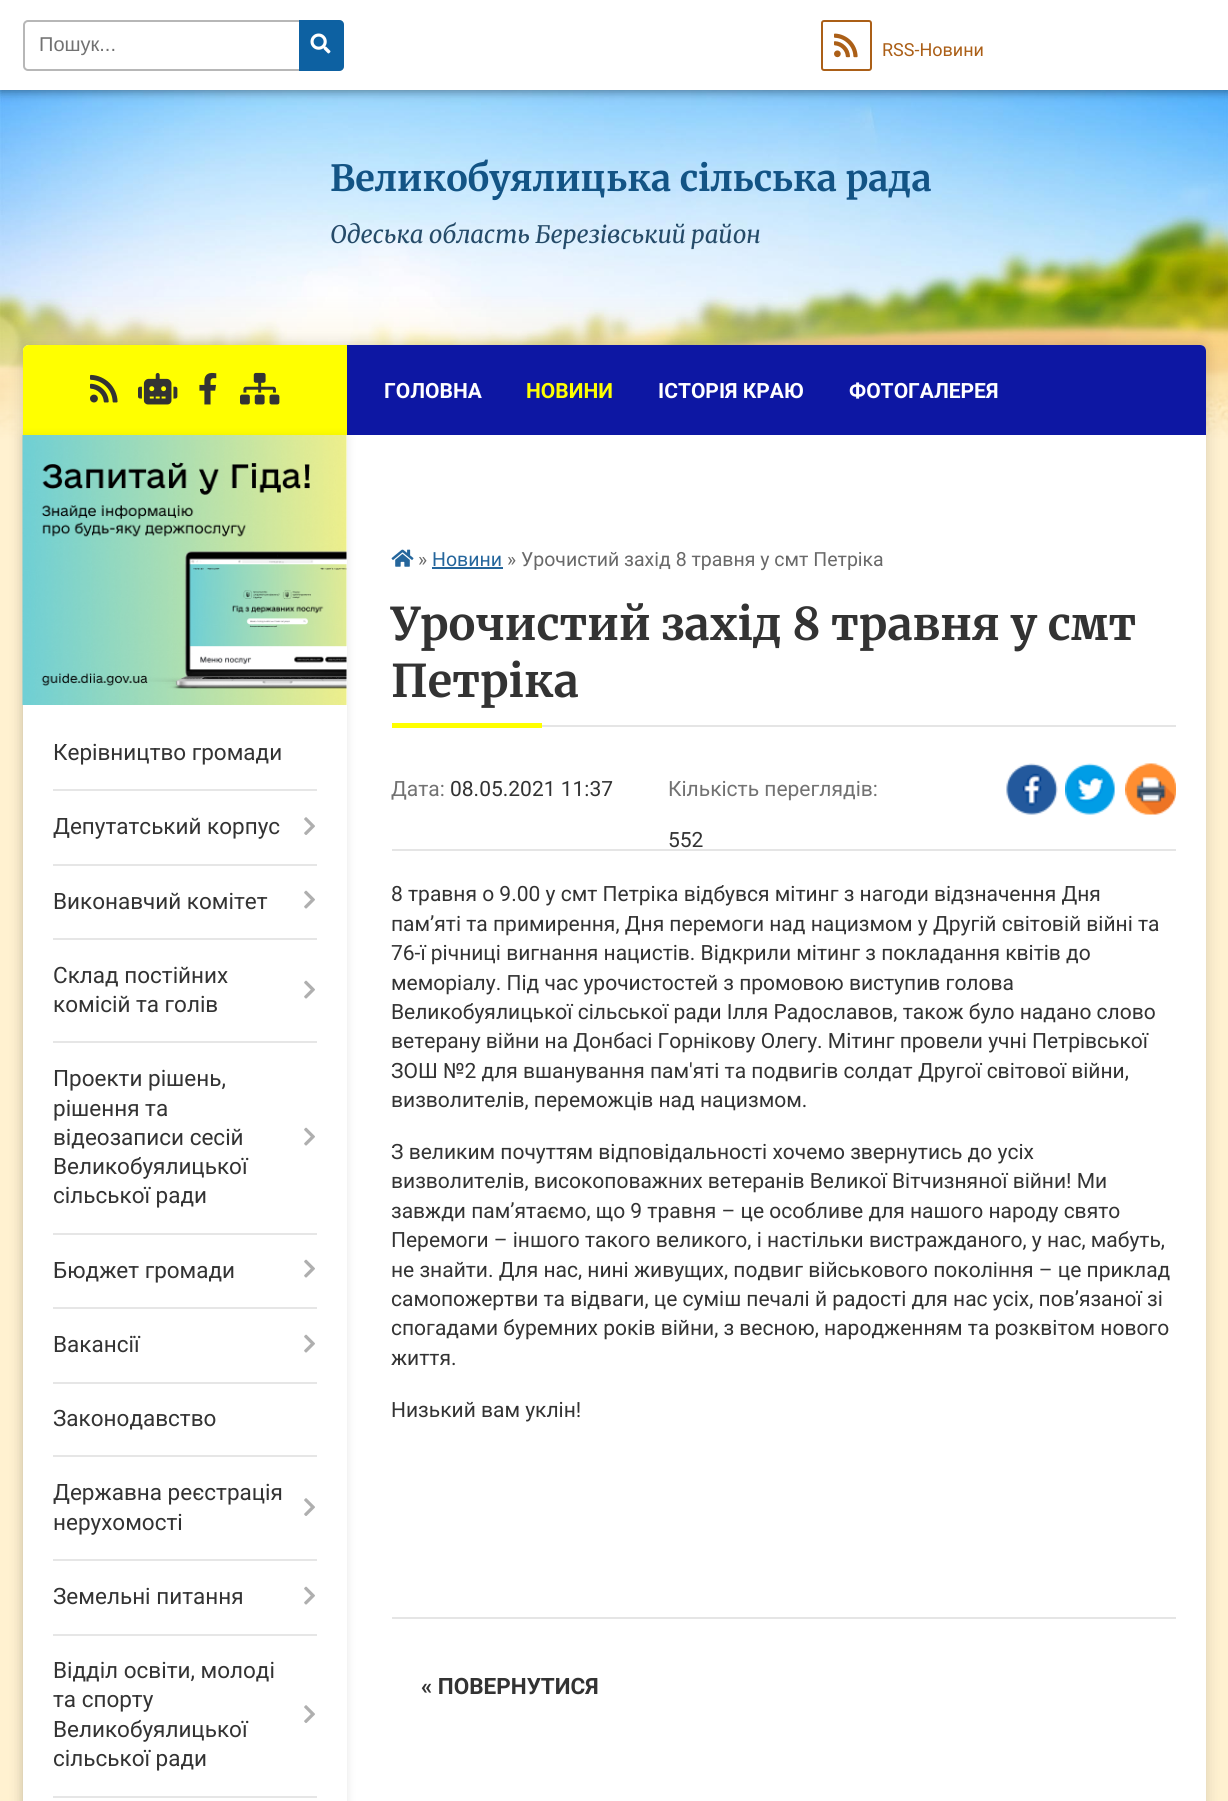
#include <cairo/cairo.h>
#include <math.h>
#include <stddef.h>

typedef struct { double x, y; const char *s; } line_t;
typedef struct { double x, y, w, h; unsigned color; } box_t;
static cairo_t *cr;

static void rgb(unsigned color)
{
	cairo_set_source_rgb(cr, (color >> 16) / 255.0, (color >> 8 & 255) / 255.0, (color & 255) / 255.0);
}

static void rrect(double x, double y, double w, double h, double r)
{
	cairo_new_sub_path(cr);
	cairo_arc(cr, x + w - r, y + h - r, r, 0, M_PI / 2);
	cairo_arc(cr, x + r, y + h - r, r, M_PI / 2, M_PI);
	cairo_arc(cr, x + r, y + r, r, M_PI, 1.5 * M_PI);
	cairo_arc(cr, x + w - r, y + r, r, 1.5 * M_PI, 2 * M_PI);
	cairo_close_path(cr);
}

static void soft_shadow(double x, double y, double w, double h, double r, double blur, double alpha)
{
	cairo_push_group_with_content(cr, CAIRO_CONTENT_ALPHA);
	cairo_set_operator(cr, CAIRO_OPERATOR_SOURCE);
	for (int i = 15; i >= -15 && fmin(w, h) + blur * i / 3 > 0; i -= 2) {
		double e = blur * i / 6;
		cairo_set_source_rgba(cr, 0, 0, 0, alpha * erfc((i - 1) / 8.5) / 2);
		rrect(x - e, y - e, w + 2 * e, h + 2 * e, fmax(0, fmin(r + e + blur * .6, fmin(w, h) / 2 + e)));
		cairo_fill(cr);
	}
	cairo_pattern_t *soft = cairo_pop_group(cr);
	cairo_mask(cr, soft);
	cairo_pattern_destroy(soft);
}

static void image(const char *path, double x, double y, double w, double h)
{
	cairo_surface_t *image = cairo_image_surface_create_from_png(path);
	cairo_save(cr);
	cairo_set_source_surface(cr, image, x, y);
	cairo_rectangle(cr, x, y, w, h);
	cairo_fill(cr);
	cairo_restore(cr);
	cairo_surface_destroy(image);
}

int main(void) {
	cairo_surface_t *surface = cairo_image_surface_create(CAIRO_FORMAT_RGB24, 1228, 1801);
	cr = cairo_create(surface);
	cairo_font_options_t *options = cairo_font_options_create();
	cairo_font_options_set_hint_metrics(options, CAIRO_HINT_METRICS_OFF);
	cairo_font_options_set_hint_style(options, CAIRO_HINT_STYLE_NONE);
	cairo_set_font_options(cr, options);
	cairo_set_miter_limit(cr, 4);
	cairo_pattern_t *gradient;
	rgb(0xffffff);
	cairo_paint(cr);
	image("img/1.png", 0, 90, 1228, 349);
	gradient = cairo_pattern_create_linear(614, 0, 614, 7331);
	cairo_pattern_add_color_stop_rgba(gradient, 0.04, 1, 0.945, 0.816, 0);
	cairo_pattern_add_color_stop_rgba(gradient, 0.06, 1, 0.945, 0.816, 1);
	cairo_set_source(cr, gradient);
	cairo_pattern_destroy(gradient);
	cairo_rectangle(cr, 0, 296, 1228, 1505);
	cairo_fill(cr);
	rgb(0x000000);
	soft_shadow(0, 2, 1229, 90, 0, 5, 0.4);
	rgb(0xffffff);
	cairo_rectangle(cr, 0, 0, 1228, 90);
	cairo_fill(cr);
	rrect(24, 21, 319, 49, 4);
	rgb(0xb7b7b7);
	cairo_stroke(cr);
	rgb(0x0d61a2);
	cairo_new_path(cr);
	cairo_move_to(cr, 299, 20);
	cairo_line_to(cr, 339, 20);
	cairo_curve_to(cr, 342, 20, 344, 22, 344, 25);
	cairo_line_to(cr, 344, 66);
	cairo_curve_to(cr, 344, 69, 342, 71, 339, 71);
	cairo_line_to(cr, 299, 71);
	cairo_close_path(cr);
	cairo_fill(cr);
	image("img/2.png", 310, 33, 21, 21);
	rrect(822, 21, 49, 49, 2);
	rgb(0xab5f17);
	cairo_stroke(cr);
	image("img/3.png", 834, 33, 24, 25);
	rgb(0x000000);
	soft_shadow(23, 345, 1183, 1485, 6, 7.5, 0.15);
	rgb(0xffffff);
	rrect(23, 345, 1183, 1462, 6);
	cairo_fill(cr);
	rgb(0xffff00);
	cairo_new_path(cr);
	cairo_move_to(cr, 29, 345);
	cairo_line_to(cr, 347, 345);
	cairo_line_to(cr, 347, 435);
	cairo_line_to(cr, 23, 435);
	cairo_line_to(cr, 23, 351);
	cairo_curve_to(cr, 23, 347.5, 25.5, 345, 29, 345);
	cairo_close_path(cr);
	cairo_fill(cr);
	image("img/4.png", 90, 374, 28, 29);
	image("img/5.png", 138, 373, 40, 32);
	image("img/6.png", 199, 372, 18, 33);
	image("img/7.png", 240, 372, 40, 33);
	rgb(0x0d17a3);
	cairo_new_path(cr);
	cairo_move_to(cr, 347, 345);
	cairo_line_to(cr, 1200, 345);
	cairo_curve_to(cr, 1203.5, 345, 1206, 347.5, 1206, 351);
	cairo_line_to(cr, 1206, 435);
	cairo_line_to(cr, 347, 435);
	cairo_close_path(cr);
	cairo_fill(cr);
	cairo_save(cr);
	cairo_set_fill_rule(cr, CAIRO_FILL_RULE_EVEN_ODD);
	cairo_new_path(cr);
	cairo_move_to(cr, 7, 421);
	cairo_line_to(cr, 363, 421);
	cairo_line_to(cr, 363, 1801);
	cairo_line_to(cr, 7, 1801);
	cairo_close_path(cr);
	cairo_move_to(cr, 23, 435);
	cairo_line_to(cr, 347, 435);
	cairo_line_to(cr, 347, 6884);
	cairo_line_to(cr, 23, 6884);
	cairo_close_path(cr);
	cairo_clip(cr);
	rgb(0x000000);
	soft_shadow(23, 437, 324, 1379, 0, 5, 0.1);
	cairo_restore(cr);
	image("img/8.png", 22, 435, 325, 270);
	rgb(0xe6e6e6);
	cairo_rectangle(cr, 53, 789, 264, 2);
	cairo_fill(cr);
	cairo_rectangle(cr, 53, 864, 264, 2);
	cairo_fill(cr);
	image("img/9.png", 304, 817, 11, 18);
	cairo_rectangle(cr, 53, 938, 264, 2);
	cairo_fill(cr);
	image("img/10.png", 304, 890, 11, 19);
	cairo_rectangle(cr, 53, 1041, 264, 2);
	cairo_fill(cr);
	image("img/10.png", 304, 980, 11, 19);
	cairo_rectangle(cr, 53, 1233, 264, 2);
	cairo_fill(cr);
	image("img/10.png", 304, 1127, 11, 19);
	cairo_rectangle(cr, 53, 1307, 264, 2);
	cairo_fill(cr);
	image("img/10.png", 304, 1259, 11, 19);
	cairo_rectangle(cr, 53, 1382, 264, 2);
	cairo_fill(cr);
	image("img/10.png", 304, 1334, 11, 19);
	cairo_rectangle(cr, 53, 1455, 264, 2);
	cairo_fill(cr);
	cairo_rectangle(cr, 53, 1559, 264, 2);
	cairo_fill(cr);
	image("img/9.png", 304, 1498, 11, 18);
	cairo_rectangle(cr, 53, 1634, 264, 2);
	cairo_fill(cr);
	image("img/10.png", 304, 1586, 11, 19);
	cairo_rectangle(cr, 53, 1796, 264, 2);
	cairo_fill(cr);
	image("img/9.png", 304, 1705, 11, 18);
	image("img/11.png", 391, 549, 23, 18);
	{
		static const box_t items[] = {
			{432, 567, 71, 2, 0x25669c},
			{542, 725, 634, 2, 0xe5e5e5},
			{392, 723, 150, 5, 0xffff00},
		};
		for (size_t i = 0; i < sizeof items / sizeof *items; i++) {
			rgb(items[i].color);
			cairo_rectangle(cr, items[i].x, items[i].y, items[i].w, items[i].h);
			cairo_fill(cr);
		}
	}
	image("img/12.png", 1006, 763, 52, 52);
	image("img/13.png", 1065, 763, 50, 52);
	image("img/14.png", 1125, 763, 51, 52);
	rgb(0xe5e5e5);
	cairo_rectangle(cr, 392, 849, 784, 2);
	cairo_fill(cr);
	cairo_rectangle(cr, 392, 1617, 784, 2);
	cairo_fill(cr);
	cairo_select_font_face(cr, "Liberation Sans", CAIRO_FONT_SLANT_NORMAL, CAIRO_FONT_WEIGHT_NORMAL);
	cairo_set_font_size(cr, 20);
	rgb(0x727272);
	cairo_move_to(cr, 39, 51);
	cairo_show_text(cr, "Пошук...");
	cairo_select_font_face(cr, "Roboto", CAIRO_FONT_SLANT_NORMAL, CAIRO_FONT_WEIGHT_NORMAL);
	cairo_set_font_size(cr, 18);
	rgb(0xab5f17);
	cairo_move_to(cr, 882, 56);
	cairo_show_text(cr, "RSS-Новини");
	cairo_select_font_face(cr, "Merriweather Light", CAIRO_FONT_SLANT_NORMAL, CAIRO_FONT_WEIGHT_NORMAL);
	cairo_set_font_size(cr, 36);
	rgb(0x135485);
	cairo_move_to(cr, 330, 191);
	cairo_show_text(cr, "Великобуялицька cільська рада");
	cairo_select_font_face(cr, "Merriweather Light", CAIRO_FONT_SLANT_ITALIC, CAIRO_FONT_WEIGHT_NORMAL);
	cairo_set_font_size(cr, 24);
	rgb(0x254b69);
	cairo_move_to(cr, 330, 243);
	cairo_show_text(cr, "Одеська область Березівський район");
	cairo_select_font_face(cr, "Roboto", CAIRO_FONT_SLANT_NORMAL, CAIRO_FONT_WEIGHT_NORMAL);
	cairo_set_font_size(cr, 22.5);
	rgb(0x333333);
	{
		static const line_t items[] = {
			{53, 760, "Керівництво громади"},
			{53, 834, "Депутатський корпус"},
			{53, 909, "Виконавчий комітет"},
			{53, 983, "Склад постійних"},
			{53, 1012, "комісій та голів"},
			{53, 1086, "Проекти рішень,"},
			{53, 1116, "рішення та"},
			{53, 1145, "відеозаписи сесій"},
			{53, 1174, "Великобуялицької"},
			{53, 1203, "сільської ради"},
			{53, 1278, "Бюджет громади"},
			{53, 1352, "Вакансії"},
			{53, 1426, "Законодавство"},
			{53, 1500, "Державна реєстрація"},
			{53, 1530, "нерухомості"},
			{53, 1604, "Земельні питання"},
			{53, 1678, "Відділ освіти, молоді"},
			{53, 1707, "та спорту"},
			{53, 1737, "Великобуялицької"},
			{53, 1766, "сільської ради"},
		};
		for (size_t i = 0; i < sizeof items / sizeof *items; i++) {
			cairo_move_to(cr, items[i].x, items[i].y);
			cairo_show_text(cr, items[i].s);
		}
	}
	cairo_select_font_face(cr, "Roboto", CAIRO_FONT_SLANT_NORMAL, CAIRO_FONT_WEIGHT_BOLD);
	cairo_set_font_size(cr, 21);
	rgb(0xffffff);
	cairo_move_to(cr, 384, 398);
	cairo_show_text(cr, "ГОЛОВНА");
	rgb(0xffff00);
	cairo_move_to(cr, 526, 398);
	cairo_show_text(cr, "НОВИНИ");
	rgb(0xffffff);
	cairo_move_to(cr, 658, 398);
	cairo_show_text(cr, "ІСТОРІЯ КРАЮ");
	cairo_move_to(cr, 849, 398);
	cairo_show_text(cr, "ФОТОГАЛЕРЕЯ");
	cairo_select_font_face(cr, "Roboto", CAIRO_FONT_SLANT_NORMAL, CAIRO_FONT_WEIGHT_NORMAL);
	cairo_set_font_size(cr, 19.5);
	rgb(0x696969);
	cairo_move_to(cr, 418, 566);
	cairo_show_text(cr, "»");
	rgb(0x25669c);
	cairo_move_to(cr, 432, 566);
	cairo_show_text(cr, "Новини");
	rgb(0x696969);
	cairo_move_to(cr, 507, 566);
	cairo_show_text(cr, "» Урочистий захід 8 травня у смт Петріка");
	cairo_select_font_face(cr, "Merriweather Light", CAIRO_FONT_SLANT_NORMAL, CAIRO_FONT_WEIGHT_NORMAL);
	cairo_set_font_size(cr, 45);
	rgb(0x333333);
	cairo_move_to(cr, 391, 640);
	cairo_show_text(cr, "Урочистий захід 8 травня у смт");
	cairo_move_to(cr, 391, 697);
	cairo_show_text(cr, "Петріка");
	cairo_select_font_face(cr, "Roboto", CAIRO_FONT_SLANT_NORMAL, CAIRO_FONT_WEIGHT_NORMAL);
	cairo_set_font_size(cr, 21);
	rgb(0x727272);
	cairo_move_to(cr, 391, 796);
	cairo_show_text(cr, "Дата:");
	rgb(0x333333);
	cairo_move_to(cr, 450, 796);
	cairo_show_text(cr, "08.05.2021 11:37");
	rgb(0x727272);
	cairo_move_to(cr, 668, 796);
	cairo_show_text(cr, "Кількість переглядів:");
	rgb(0x333333);
	{
		static const line_t items[] = {
			{668, 847, "552"},
			{391, 901, "8 травня о 9.00 у смт Петріка відбувся мітинг з нагоди відзначення Дня"},
			{391, 931, "пам’яті та примирення, Дня перемоги над нацизмом у Другій світовій війні та"},
			{391, 960, "76-ї річниці вигнання нацистів. Відкрили мітинг з покладання квітів до"},
			{391, 990, "меморіалу. Під час урочистостей з промовою виступив голова"},
			{391, 1019, "Великобуялицької сільської ради Ілля Радославов, також було надано слово"},
			{391, 1048, "ветерану війни на Донбасі Горнікову Олегу. Мітинг провели учні Петрівської"},
			{391, 1078, "ЗОШ №2 для вшанування пам'яті та подвигів солдат Другої світової війни,"},
			{391, 1107, "визволителів, переможців над нацизмом."},
			{391, 1159, "З великим почуттям відповідальності хочемо звернутись до усіх"},
			{391, 1188, "визволителів, високоповажних ветеранів Великої Вітчизняної війни! Ми"},
			{391, 1218, "завжди пам’ятаємо, що 9 травня – це особливе для нашого народу свято"},
			{391, 1247, "Перемоги – іншого такого великого, і настільки вистражданого, у нас, мабуть,"},
			{391, 1277, "не знайти. Для нас, нині живущих, подвиг військового покоління – це приклад"},
			{391, 1306, "самопожертви та відваги, це суміш печалі й радості для нас усіх, пов’язаної зі"},
			{391, 1335, "спогадами буремних років війни, з весною, народженням та розквітом нового"},
			{391, 1365, "життя."},
			{391, 1417, "Низький вам уклін!"},
		};
		for (size_t i = 0; i < sizeof items / sizeof *items; i++) {
			cairo_move_to(cr, items[i].x, items[i].y);
			cairo_show_text(cr, items[i].s);
		}
	}
	cairo_select_font_face(cr, "Roboto", CAIRO_FONT_SLANT_NORMAL, CAIRO_FONT_WEIGHT_BOLD);
	cairo_set_font_size(cr, 22.5);
	cairo_move_to(cr, 421, 1694);
	cairo_show_text(cr, "« ПОВЕРНУТИСЯ");
	cairo_surface_write_to_png(surface, "page.png");
	cairo_font_options_destroy(options);
	cairo_destroy(cr);
	cairo_surface_destroy(surface);
	return 0;
}
